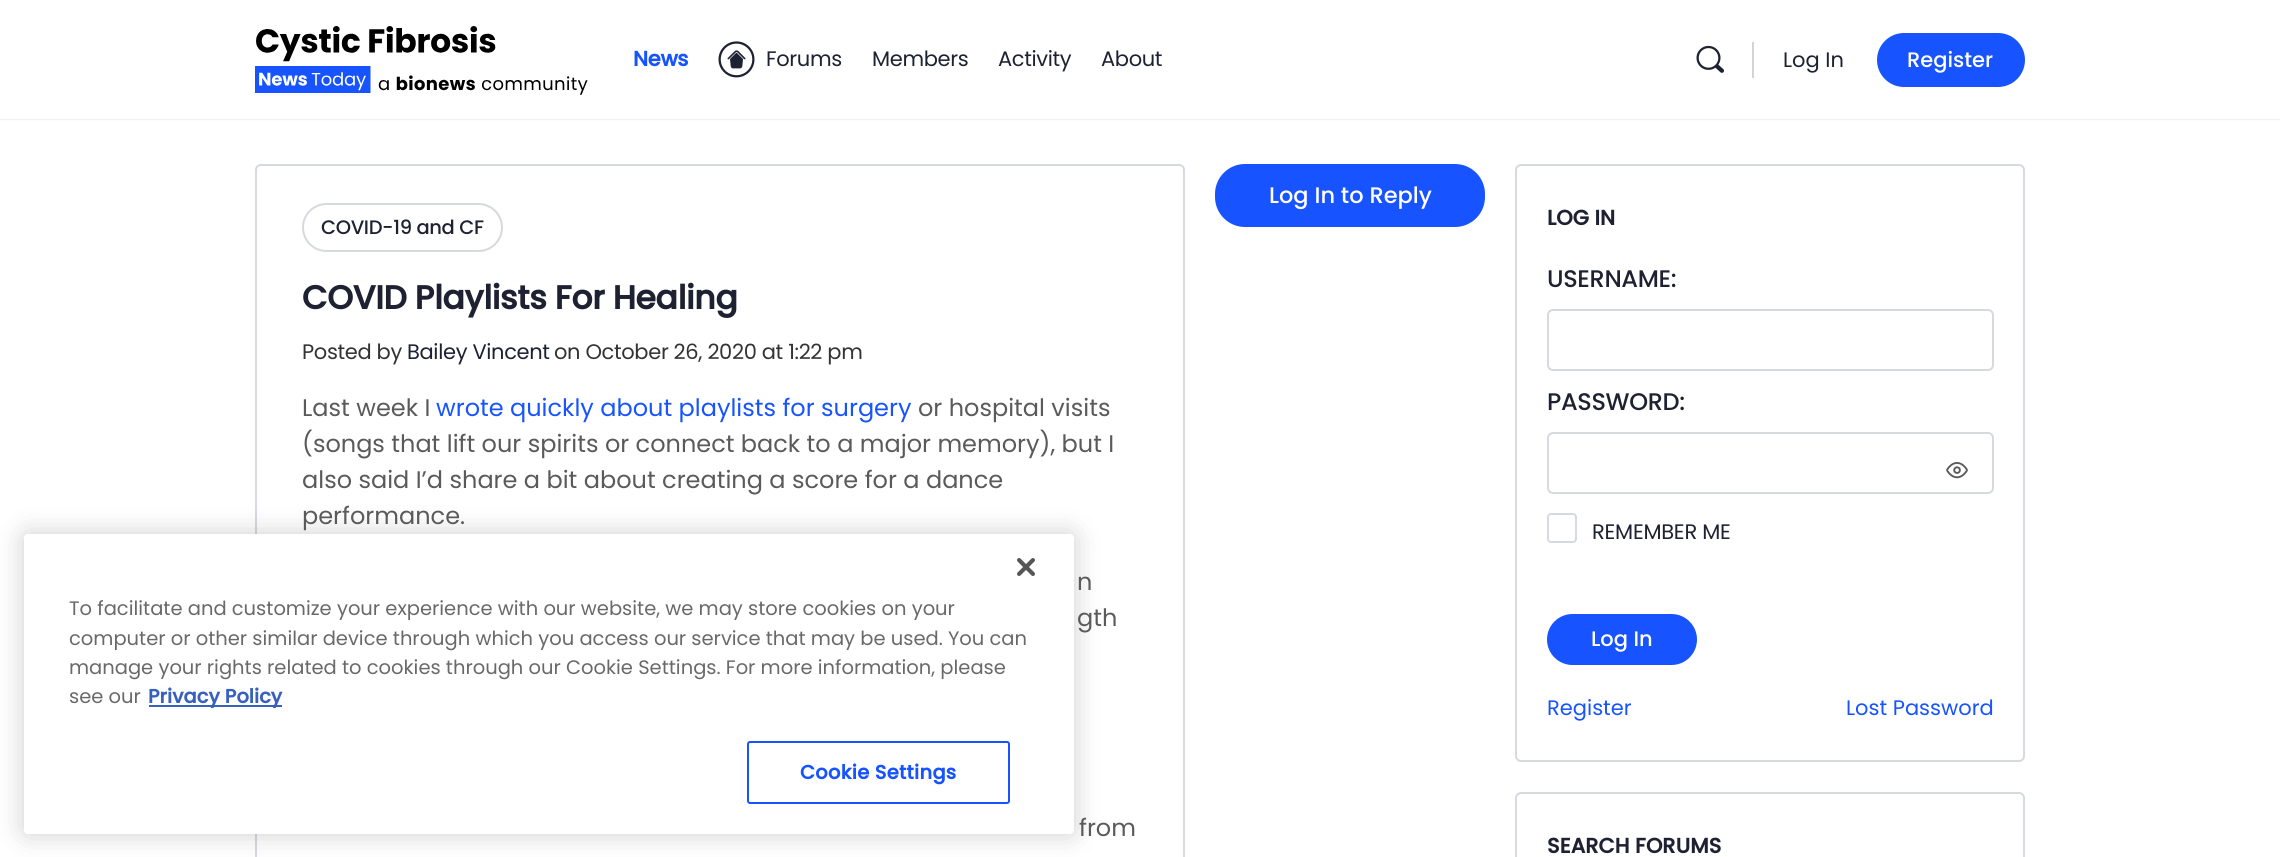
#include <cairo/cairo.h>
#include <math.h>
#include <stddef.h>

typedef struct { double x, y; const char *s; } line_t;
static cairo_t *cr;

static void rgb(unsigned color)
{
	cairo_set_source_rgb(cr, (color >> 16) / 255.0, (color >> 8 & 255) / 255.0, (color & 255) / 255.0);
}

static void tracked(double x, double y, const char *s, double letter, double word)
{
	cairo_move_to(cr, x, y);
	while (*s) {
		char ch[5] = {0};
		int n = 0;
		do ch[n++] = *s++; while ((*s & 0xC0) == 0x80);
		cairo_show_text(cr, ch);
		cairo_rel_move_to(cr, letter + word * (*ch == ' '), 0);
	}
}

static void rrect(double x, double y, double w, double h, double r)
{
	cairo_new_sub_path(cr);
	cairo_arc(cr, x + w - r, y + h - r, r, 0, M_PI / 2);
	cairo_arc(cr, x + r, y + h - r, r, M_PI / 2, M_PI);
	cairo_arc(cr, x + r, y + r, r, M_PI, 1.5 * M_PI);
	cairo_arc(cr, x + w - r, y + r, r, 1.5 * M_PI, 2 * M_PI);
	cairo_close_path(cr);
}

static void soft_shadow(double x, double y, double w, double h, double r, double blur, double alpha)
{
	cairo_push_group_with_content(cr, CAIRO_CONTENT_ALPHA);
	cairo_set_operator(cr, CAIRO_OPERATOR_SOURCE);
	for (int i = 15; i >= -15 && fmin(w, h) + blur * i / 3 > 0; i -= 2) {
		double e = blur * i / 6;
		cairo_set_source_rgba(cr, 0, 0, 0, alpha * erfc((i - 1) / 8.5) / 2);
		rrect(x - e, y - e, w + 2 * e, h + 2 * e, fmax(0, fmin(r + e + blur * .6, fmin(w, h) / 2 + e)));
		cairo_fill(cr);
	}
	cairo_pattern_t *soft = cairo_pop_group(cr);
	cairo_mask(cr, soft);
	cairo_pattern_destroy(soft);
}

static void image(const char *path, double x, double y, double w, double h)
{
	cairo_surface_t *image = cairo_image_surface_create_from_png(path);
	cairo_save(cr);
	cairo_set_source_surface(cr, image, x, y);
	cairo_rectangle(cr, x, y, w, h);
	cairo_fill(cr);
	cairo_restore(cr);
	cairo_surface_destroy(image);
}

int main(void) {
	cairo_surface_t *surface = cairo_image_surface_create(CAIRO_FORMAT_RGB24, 2280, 857);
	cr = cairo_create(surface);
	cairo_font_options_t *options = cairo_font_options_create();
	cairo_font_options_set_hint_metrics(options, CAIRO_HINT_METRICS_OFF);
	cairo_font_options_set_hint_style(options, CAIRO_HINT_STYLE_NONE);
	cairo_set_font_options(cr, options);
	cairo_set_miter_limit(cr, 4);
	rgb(0xffffff);
	cairo_paint(cr);
	rgb(0x41476c);
	soft_shadow(0, 0, 2280, 119, 0, 1, 0.15);
	cairo_set_source_rgba(cr, 0.545, 0.553, 0.616, 0.05);
	cairo_rectangle(cr, 0, 119, 2280, 1);
	cairo_fill(cr);
	rgb(0xffffff);
	cairo_rectangle(cr, 0, 0, 2280, 119);
	cairo_fill(cr);
	image("img/1.png", 255, 26, 333, 69);
	image("img/2.png", 718, 41, 37, 37);
	image("img/3.png", 1696, 45, 28, 28);
	rgb(0xd2d3d6);
	cairo_rectangle(cr, 1752, 42, 2, 36);
	cairo_fill(cr);
	rgb(0x1754ff);
	rrect(1878, 34, 146, 52, 26);
	cairo_fill_preserve(cr);
	cairo_stroke(cr);
	rrect(1216, 165, 268, 61, 29);
	cairo_fill_preserve(cr);
	cairo_stroke(cr);
	cairo_new_path(cr);
	cairo_move_to(cr, 261, 165);
	cairo_line_to(cr, 1179, 165);
	cairo_curve_to(cr, 1182, 165, 1184, 167, 1184, 170);
	cairo_line_to(cr, 1184, 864);
	cairo_line_to(cr, 256, 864);
	cairo_line_to(cr, 256, 170);
	cairo_curve_to(cr, 256, 167, 258, 165, 261, 165);
	cairo_close_path(cr);
	rgb(0xd6d9dd);
	cairo_stroke(cr);
	rrect(303, 204, 199, 47, 23.5);
	cairo_stroke(cr);
	rrect(1516, 165, 508, 596, 5);
	cairo_stroke(cr);
	rrect(1548, 310, 445, 60, 5);
	cairo_stroke(cr);
	rrect(1548, 433, 445, 60, 5);
	cairo_stroke(cr);
	image("img/4.png", 1946, 462, 22, 17);
	rrect(1548, 514, 28, 28, 3);
	cairo_stroke(cr);
	rgb(0x1754ff);
	rrect(1548, 615, 148, 49, 24.5);
	cairo_fill_preserve(cr);
	cairo_stroke(cr);
	rrect(1516, 793, 508, 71, 5);
	rgb(0xd6d9dd);
	cairo_stroke(cr);
	rgb(0x000000);
	soft_shadow(24, 534, 1050, 300, 4, 13.5, 0.2);
	rgb(0xffffff);
	rrect(24, 534, 1050, 300, 4);
	cairo_fill(cr);
	image("img/5.png", 1017, 558, 18, 18);
	rgb(0x3860be);
	cairo_rectangle(cr, 149, 705, 133, 2);
	cairo_fill(cr);
	rrect(748, 742, 261, 61, 2);
	rgb(0x1754ff);
	cairo_stroke(cr);
	cairo_select_font_face(cr, "Poppins", CAIRO_FONT_SLANT_NORMAL, CAIRO_FONT_WEIGHT_BOLD);
	cairo_set_font_size(cr, 21);
	tracked(633, 66, "News", -0.35, 0);
	cairo_select_font_face(cr, "Poppins", CAIRO_FONT_SLANT_NORMAL, CAIRO_FONT_WEIGHT_NORMAL);
	rgb(0x1e2132);
	{
		static const line_t items[] = {
			{766, 66, "Forums"},
			{872, 66, "Members"},
			{998, 66, "Activity"},
			{1101, 66, "About"},
		};
		for (size_t i = 0; i < sizeof items / sizeof *items; i++) {
			tracked(items[i].x, items[i].y, items[i].s, -0.35, 0);
		}
	}
	cairo_move_to(cr, 1783, 67);
	cairo_show_text(cr, "Log In");
	cairo_select_font_face(cr, "Poppins Medium", CAIRO_FONT_SLANT_NORMAL, CAIRO_FONT_WEIGHT_NORMAL);
	rgb(0xffffff);
	cairo_move_to(cr, 1907, 67);
	cairo_show_text(cr, "Register");
	cairo_set_font_size(cr, 22.5);
	cairo_move_to(cr, 1269, 203);
	cairo_show_text(cr, "Log In to Reply");
	cairo_set_font_size(cr, 19.5);
	rgb(0x1e2132);
	tracked(321, 234, "COVID-19 and CF", -0.35, 0);
	cairo_select_font_face(cr, "Poppins", CAIRO_FONT_SLANT_NORMAL, CAIRO_FONT_WEIGHT_BOLD);
	cairo_set_font_size(cr, 33);
	tracked(302, 309, "COVID Playlists For Healing", -0.35, 0);
	cairo_select_font_face(cr, "Poppins", CAIRO_FONT_SLANT_NORMAL, CAIRO_FONT_WEIGHT_NORMAL);
	cairo_set_font_size(cr, 21);
	rgb(0x333333);
	tracked(302, 359, "Posted by", -0.35, 0);
	rgb(0x1e2132);
	tracked(407, 359, "Bailey Vincent", -0.35, 0);
	rgb(0x333333);
	tracked(554, 359, "on October 26, 2020 at 1:22 pm", -0.35, 0);
	cairo_set_font_size(cr, 24);
	rgb(0x5a5a5a);
	cairo_move_to(cr, 302, 416);
	cairo_show_text(cr, "Last week I");
	rgb(0x1754ff);
	cairo_move_to(cr, 436, 416);
	cairo_show_text(cr, "wrote quickly about playlists for surgery");
	rgb(0x5a5a5a);
	{
		static const line_t items[] = {
			{918, 416, "or hospital visits"},
			{302, 452, "(songs that lift our spirits or connect back to a major memory), but I"},
			{302, 488, "also said I’d share a bit about creating a score for a dance"},
			{302, 524, "performance."},
			{1077, 590, "n"},
			{1077, 626, "gth"},
			{1079, 836, "from"},
		};
		for (size_t i = 0; i < sizeof items / sizeof *items; i++) {
			cairo_move_to(cr, items[i].x, items[i].y);
			cairo_show_text(cr, items[i].s);
		}
	}
	cairo_select_font_face(cr, "Poppins", CAIRO_FONT_SLANT_NORMAL, CAIRO_FONT_WEIGHT_BOLD);
	cairo_set_font_size(cr, 21);
	rgb(0x1e2132);
	cairo_move_to(cr, 1547, 225);
	cairo_show_text(cr, "LOG IN");
	cairo_select_font_face(cr, "Poppins Medium", CAIRO_FONT_SLANT_NORMAL, CAIRO_FONT_WEIGHT_NORMAL);
	cairo_set_font_size(cr, 24);
	tracked(1547, 287, "USERNAME:", -0.35, 0);
	tracked(1547, 410, "PASSWORD:", -0.35, 0);
	cairo_select_font_face(cr, "Poppins", CAIRO_FONT_SLANT_NORMAL, CAIRO_FONT_WEIGHT_NORMAL);
	cairo_set_font_size(cr, 21);
	tracked(1592, 539, "REMEMBER ME", -0.25, 0);
	cairo_select_font_face(cr, "Poppins Medium", CAIRO_FONT_SLANT_NORMAL, CAIRO_FONT_WEIGHT_NORMAL);
	rgb(0xffffff);
	cairo_move_to(cr, 1591, 646);
	cairo_show_text(cr, "Log In");
	cairo_select_font_face(cr, "Poppins", CAIRO_FONT_SLANT_NORMAL, CAIRO_FONT_WEIGHT_NORMAL);
	rgb(0x1754ff);
	cairo_move_to(cr, 1547, 715);
	cairo_show_text(cr, "Register");
	cairo_move_to(cr, 1846, 715);
	cairo_show_text(cr, "Lost Password");
	cairo_select_font_face(cr, "Poppins", CAIRO_FONT_SLANT_NORMAL, CAIRO_FONT_WEIGHT_BOLD);
	rgb(0x1e2132);
	cairo_move_to(cr, 1547, 853);
	cairo_show_text(cr, "SEARCH FORUMS");
	cairo_select_font_face(cr, "Poppins", CAIRO_FONT_SLANT_NORMAL, CAIRO_FONT_WEIGHT_NORMAL);
	cairo_set_font_size(cr, 19.5);
	rgb(0x696969);
	{
		static const line_t items[] = {
			{69, 615, "To facilitate and customize your experience with our website, we may store cookies on your"},
			{69, 645, "computer or other similar device through which you access our service that may be used. You can"},
			{69, 674, "manage your rights related to cookies through our Cookie Settings. For more information, please"},
			{69, 703, "see our"},
		};
		for (size_t i = 0; i < sizeof items / sizeof *items; i++) {
			cairo_move_to(cr, items[i].x, items[i].y);
			cairo_show_text(cr, items[i].s);
		}
	}
	cairo_select_font_face(cr, "Poppins", CAIRO_FONT_SLANT_NORMAL, CAIRO_FONT_WEIGHT_BOLD);
	rgb(0x3860be);
	cairo_move_to(cr, 148, 703);
	cairo_show_text(cr, "Privacy Policy");
	rgb(0x1754ff);
	tracked(800, 779, "Cookie Settings", 0.25, 0);
	cairo_surface_write_to_png(surface, "page.png");
	cairo_font_options_destroy(options);
	cairo_destroy(cr);
	cairo_surface_destroy(surface);
	return 0;
}
